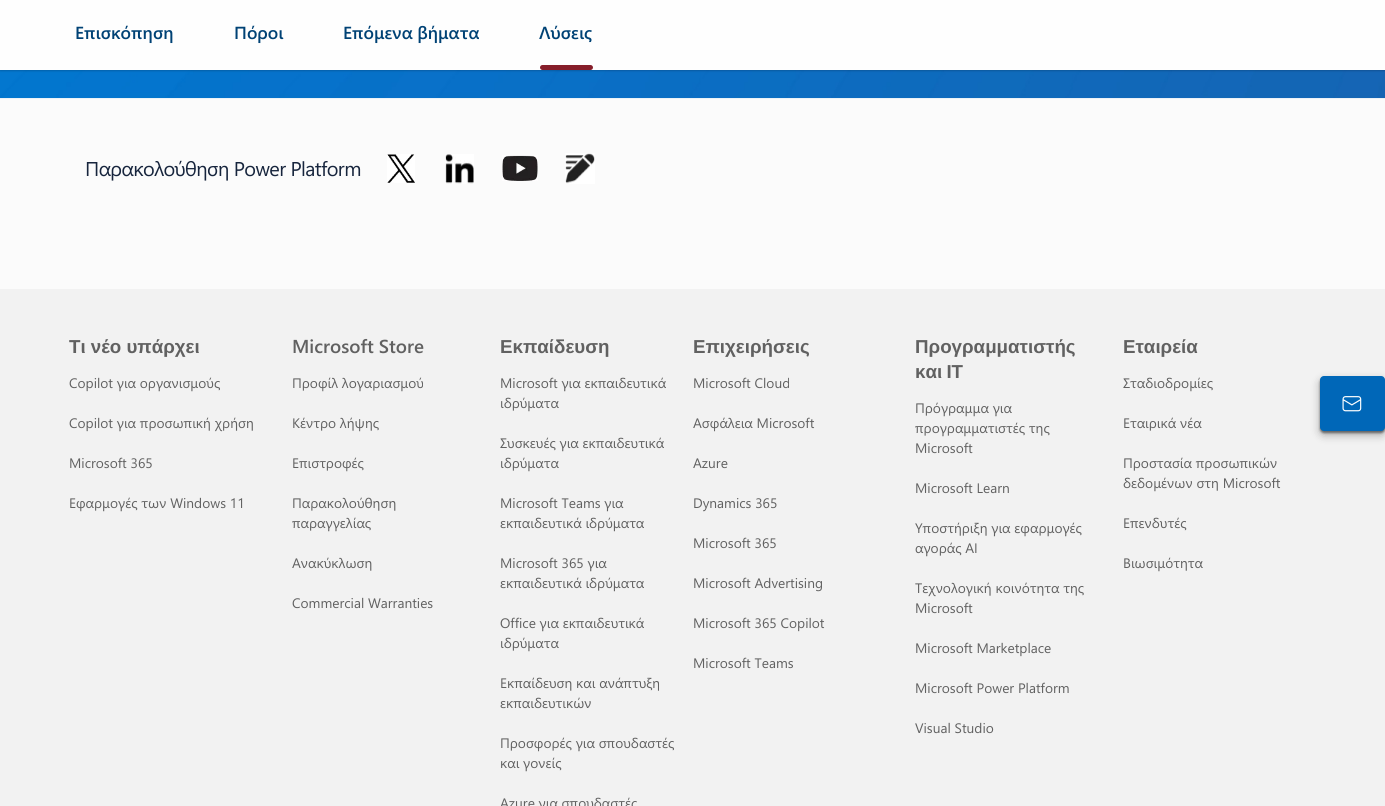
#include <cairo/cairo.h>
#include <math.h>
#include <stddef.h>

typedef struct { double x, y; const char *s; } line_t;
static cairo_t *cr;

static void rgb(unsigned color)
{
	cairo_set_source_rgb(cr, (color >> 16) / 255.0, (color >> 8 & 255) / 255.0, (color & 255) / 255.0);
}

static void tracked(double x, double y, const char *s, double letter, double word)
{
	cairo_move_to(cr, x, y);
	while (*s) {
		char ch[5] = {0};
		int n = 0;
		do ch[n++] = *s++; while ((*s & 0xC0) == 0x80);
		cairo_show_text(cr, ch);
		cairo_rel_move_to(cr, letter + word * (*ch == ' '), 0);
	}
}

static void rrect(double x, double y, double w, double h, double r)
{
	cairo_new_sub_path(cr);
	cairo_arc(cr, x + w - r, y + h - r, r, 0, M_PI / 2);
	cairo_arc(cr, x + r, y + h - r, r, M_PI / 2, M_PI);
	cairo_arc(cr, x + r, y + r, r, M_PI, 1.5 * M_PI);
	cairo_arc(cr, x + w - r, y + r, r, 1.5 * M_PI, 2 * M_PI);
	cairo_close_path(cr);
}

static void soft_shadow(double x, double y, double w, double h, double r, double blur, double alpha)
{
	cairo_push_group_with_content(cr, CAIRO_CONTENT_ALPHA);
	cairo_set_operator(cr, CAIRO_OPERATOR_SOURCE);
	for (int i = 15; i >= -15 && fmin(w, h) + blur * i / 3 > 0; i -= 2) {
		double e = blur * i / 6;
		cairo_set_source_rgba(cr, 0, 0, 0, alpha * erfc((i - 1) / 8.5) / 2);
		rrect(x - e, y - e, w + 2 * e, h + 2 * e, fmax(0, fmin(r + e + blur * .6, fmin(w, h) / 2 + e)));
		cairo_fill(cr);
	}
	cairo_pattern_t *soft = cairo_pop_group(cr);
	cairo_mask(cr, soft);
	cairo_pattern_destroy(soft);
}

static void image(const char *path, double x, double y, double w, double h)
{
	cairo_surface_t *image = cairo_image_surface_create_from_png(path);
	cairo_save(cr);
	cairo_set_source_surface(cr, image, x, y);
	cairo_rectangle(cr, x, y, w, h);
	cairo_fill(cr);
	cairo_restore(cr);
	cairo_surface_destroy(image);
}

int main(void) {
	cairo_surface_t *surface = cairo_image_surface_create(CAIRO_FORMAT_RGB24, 1385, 806);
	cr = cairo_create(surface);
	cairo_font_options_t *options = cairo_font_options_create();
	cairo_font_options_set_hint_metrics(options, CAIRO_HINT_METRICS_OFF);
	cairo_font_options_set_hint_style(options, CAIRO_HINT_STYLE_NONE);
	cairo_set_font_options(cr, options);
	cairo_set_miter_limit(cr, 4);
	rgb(0xfbfbfb);
	cairo_paint(cr);
	image("img/1.png", 0, 70, 1385, 29);
	rgb(0x000000);
	soft_shadow(0, 1, 1385, 70, 0, 1, 0.14);
	soft_shadow(0, 0, 1385, 70, 0, 1, 0.12);
	rgb(0xfefefe);
	cairo_rectangle(cr, 0, 0, 1385, 70);
	cairo_fill(cr);
	rgb(0x861e2a);
	rrect(540, 65, 53, 5, 2.5);
	cairo_fill(cr);
	image("img/2.png", 387, 154, 28, 29);
	image("img/3.png", 445, 154, 29, 30);
	image("img/4.png", 502, 155, 36, 26);
	image("img/5.png", 565, 153, 30, 31);
	rgb(0xf2f2f2);
	cairo_rectangle(cr, 0, 289, 1385, 517);
	cairo_fill(cr);
	rgb(0x000000);
	soft_shadow(1320, 380, 65, 55, 4, 4.5, 0.3);
	soft_shadow(1320, 378, 65, 55, 4, 1, 0.45);
	rgb(0x0067b8);
	rrect(1320, 376, 65, 55, 4);
	cairo_fill(cr);
	image("img/6.png", 1342, 396, 20, 16);
	cairo_select_font_face(cr, "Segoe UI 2 SemiBold", CAIRO_FONT_SLANT_NORMAL, CAIRO_FONT_WEIGHT_NORMAL);
	cairo_set_font_size(cr, 17.5);
	rgb(0x004275);
	{
		static const line_t items[] = {
			{75, 39, "Επισκόπηση"},
			{234, 39, "Πόροι"},
			{343, 39, "Επόμενα βήματα"},
			{539, 39, "Λύσεις"},
		};
		for (size_t i = 0; i < sizeof items / sizeof *items; i++) {
			cairo_move_to(cr, items[i].x, items[i].y);
			cairo_show_text(cr, items[i].s);
		}
	}
	cairo_select_font_face(cr, "Segoe UI 2", CAIRO_FONT_SLANT_NORMAL, CAIRO_FONT_WEIGHT_NORMAL);
	cairo_set_font_size(cr, 20);
	rgb(0x17253d);
	tracked(85, 176, "Παρακολούθηση Power Platform", -0.6, 0);
	cairo_select_font_face(cr, "Liberation Sans", CAIRO_FONT_SLANT_NORMAL, CAIRO_FONT_WEIGHT_BOLD);
	cairo_set_font_size(cr, 18.75);
	rgb(0x616161);
	cairo_move_to(cr, 69, 353);
	cairo_show_text(cr, "Τι νέο υπάρχει");
	cairo_select_font_face(cr, "Segoe UI", CAIRO_FONT_SLANT_NORMAL, CAIRO_FONT_WEIGHT_NORMAL);
	cairo_set_font_size(cr, 13.75);
	{
		static const line_t items[] = {
			{69, 388, "Copilot για οργανισμούς"},
			{69, 428, "Copilot για προσωπική χρήση"},
			{69, 468, "Microsoft 365"},
			{69, 508, "Εφαρμογές των Windows 11"},
		};
		for (size_t i = 0; i < sizeof items / sizeof *items; i++) {
			cairo_move_to(cr, items[i].x, items[i].y);
			cairo_show_text(cr, items[i].s);
		}
	}
	cairo_select_font_face(cr, "Segoe UI SemiBold", CAIRO_FONT_SLANT_NORMAL, CAIRO_FONT_WEIGHT_NORMAL);
	cairo_set_font_size(cr, 18.75);
	cairo_move_to(cr, 292, 353);
	cairo_show_text(cr, "Microsoft Store");
	cairo_select_font_face(cr, "Segoe UI", CAIRO_FONT_SLANT_NORMAL, CAIRO_FONT_WEIGHT_NORMAL);
	cairo_set_font_size(cr, 13.75);
	{
		static const line_t items[] = {
			{292, 388, "Προφίλ λογαριασμού"},
			{292, 428, "Κέντρο λήψης"},
			{292, 468, "Επιστροφές"},
			{292, 508, "Παρακολούθηση"},
			{292, 528, "παραγγελίας"},
			{292, 568, "Ανακύκλωση"},
			{292, 608, "Commercial Warranties"},
		};
		for (size_t i = 0; i < sizeof items / sizeof *items; i++) {
			cairo_move_to(cr, items[i].x, items[i].y);
			cairo_show_text(cr, items[i].s);
		}
	}
	cairo_select_font_face(cr, "Liberation Sans", CAIRO_FONT_SLANT_NORMAL, CAIRO_FONT_WEIGHT_BOLD);
	cairo_set_font_size(cr, 18.75);
	cairo_move_to(cr, 500, 353);
	cairo_show_text(cr, "Εκπαίδευση");
	cairo_select_font_face(cr, "Segoe UI", CAIRO_FONT_SLANT_NORMAL, CAIRO_FONT_WEIGHT_NORMAL);
	cairo_set_font_size(cr, 13.75);
	{
		static const line_t items[] = {
			{500, 388, "Microsoft για εκπαιδευτικά"},
			{500, 408, "ιδρύματα"},
			{500, 448, "Συσκευές για εκπαιδευτικά"},
			{500, 468, "ιδρύματα"},
			{500, 508, "Microsoft Teams για"},
			{500, 528, "εκπαιδευτικά ιδρύματα"},
			{500, 568, "Microsoft 365 για"},
			{500, 588, "εκπαιδευτικά ιδρύματα"},
			{500, 628, "Office για εκπαιδευτικά"},
			{500, 648, "ιδρύματα"},
			{500, 688, "Εκπαίδευση και ανάπτυξη"},
			{500, 708, "εκπαιδευτικών"},
			{500, 748, "Προσφορές για σπουδαστές"},
			{500, 768, "και γονείς"},
			{500, 808, "Azure για σπουδαστές"},
		};
		for (size_t i = 0; i < sizeof items / sizeof *items; i++) {
			cairo_move_to(cr, items[i].x, items[i].y);
			cairo_show_text(cr, items[i].s);
		}
	}
	cairo_select_font_face(cr, "Liberation Sans", CAIRO_FONT_SLANT_NORMAL, CAIRO_FONT_WEIGHT_BOLD);
	cairo_set_font_size(cr, 18.75);
	cairo_move_to(cr, 693, 353);
	cairo_show_text(cr, "Επιχειρήσεις");
	cairo_select_font_face(cr, "Segoe UI", CAIRO_FONT_SLANT_NORMAL, CAIRO_FONT_WEIGHT_NORMAL);
	cairo_set_font_size(cr, 13.75);
	{
		static const line_t items[] = {
			{693, 388, "Microsoft Cloud"},
			{693, 428, "Ασφάλεια Microsoft"},
			{693, 468, "Azure"},
			{693, 508, "Dynamics 365"},
			{693, 548, "Microsoft 365"},
			{693, 588, "Microsoft Advertising"},
			{693, 628, "Microsoft 365 Copilot"},
			{693, 668, "Microsoft Teams"},
		};
		for (size_t i = 0; i < sizeof items / sizeof *items; i++) {
			cairo_move_to(cr, items[i].x, items[i].y);
			cairo_show_text(cr, items[i].s);
		}
	}
	cairo_select_font_face(cr, "Liberation Sans", CAIRO_FONT_SLANT_NORMAL, CAIRO_FONT_WEIGHT_BOLD);
	cairo_set_font_size(cr, 18.75);
	cairo_move_to(cr, 915, 353);
	cairo_show_text(cr, "Προγραμματιστής");
	tracked(915, 378, "και IT", 0, -1);
	cairo_select_font_face(cr, "Segoe UI", CAIRO_FONT_SLANT_NORMAL, CAIRO_FONT_WEIGHT_NORMAL);
	cairo_set_font_size(cr, 13.75);
	{
		static const line_t items[] = {
			{915, 413, "Πρόγραμμα για"},
			{915, 433, "προγραμματιστές της"},
			{915, 453, "Microsoft"},
			{915, 493, "Microsoft Learn"},
			{915, 533, "Υποστήριξη για εφαρμογές"},
			{915, 553, "αγοράς AI"},
			{915, 593, "Τεχνολογική κοινότητα της"},
			{915, 613, "Microsoft"},
			{915, 653, "Microsoft Marketplace"},
			{915, 693, "Microsoft Power Platform"},
			{915, 733, "Visual Studio"},
		};
		for (size_t i = 0; i < sizeof items / sizeof *items; i++) {
			cairo_move_to(cr, items[i].x, items[i].y);
			cairo_show_text(cr, items[i].s);
		}
	}
	cairo_select_font_face(cr, "Liberation Sans", CAIRO_FONT_SLANT_NORMAL, CAIRO_FONT_WEIGHT_BOLD);
	cairo_set_font_size(cr, 18.75);
	cairo_move_to(cr, 1123, 353);
	cairo_show_text(cr, "Εταιρεία");
	cairo_select_font_face(cr, "Segoe UI", CAIRO_FONT_SLANT_NORMAL, CAIRO_FONT_WEIGHT_NORMAL);
	cairo_set_font_size(cr, 13.75);
	{
		static const line_t items[] = {
			{1123, 388, "Σταδιοδρομίες"},
			{1123, 428, "Εταιρικά νέα"},
			{1123, 468, "Προστασία προσωπικών"},
			{1123, 488, "δεδομένων στη Microsoft"},
			{1123, 528, "Επενδυτές"},
			{1123, 568, "Βιωσιμότητα"},
		};
		for (size_t i = 0; i < sizeof items / sizeof *items; i++) {
			cairo_move_to(cr, items[i].x, items[i].y);
			cairo_show_text(cr, items[i].s);
		}
	}
	cairo_surface_write_to_png(surface, "page.png");
	cairo_font_options_destroy(options);
	cairo_destroy(cr);
	cairo_surface_destroy(surface);
	return 0;
}
